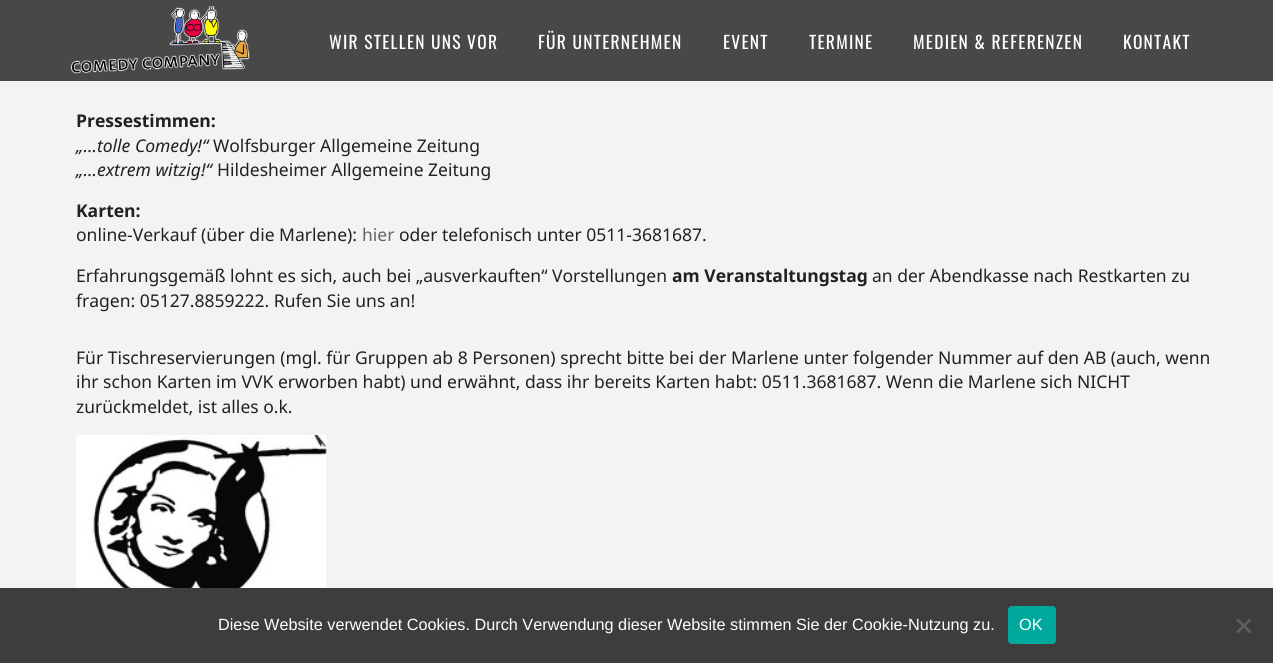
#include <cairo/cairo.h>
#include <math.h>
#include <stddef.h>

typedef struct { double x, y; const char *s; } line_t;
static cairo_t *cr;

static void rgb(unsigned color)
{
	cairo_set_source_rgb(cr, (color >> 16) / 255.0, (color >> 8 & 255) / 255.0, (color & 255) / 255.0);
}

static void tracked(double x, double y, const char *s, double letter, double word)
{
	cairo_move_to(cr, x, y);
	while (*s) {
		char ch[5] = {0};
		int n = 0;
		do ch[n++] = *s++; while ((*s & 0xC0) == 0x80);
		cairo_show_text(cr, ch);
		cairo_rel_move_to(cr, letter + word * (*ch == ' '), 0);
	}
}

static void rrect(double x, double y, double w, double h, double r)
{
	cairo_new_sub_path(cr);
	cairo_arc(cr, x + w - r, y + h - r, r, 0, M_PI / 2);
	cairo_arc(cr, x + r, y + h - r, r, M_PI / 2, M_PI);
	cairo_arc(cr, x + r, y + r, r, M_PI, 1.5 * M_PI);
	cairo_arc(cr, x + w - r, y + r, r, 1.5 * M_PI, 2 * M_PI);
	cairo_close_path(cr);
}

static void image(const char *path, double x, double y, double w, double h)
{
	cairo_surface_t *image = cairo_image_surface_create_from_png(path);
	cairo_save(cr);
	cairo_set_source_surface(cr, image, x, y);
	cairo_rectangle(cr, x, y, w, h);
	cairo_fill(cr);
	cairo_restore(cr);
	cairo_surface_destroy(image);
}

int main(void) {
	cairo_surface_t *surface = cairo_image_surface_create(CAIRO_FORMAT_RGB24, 1273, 663);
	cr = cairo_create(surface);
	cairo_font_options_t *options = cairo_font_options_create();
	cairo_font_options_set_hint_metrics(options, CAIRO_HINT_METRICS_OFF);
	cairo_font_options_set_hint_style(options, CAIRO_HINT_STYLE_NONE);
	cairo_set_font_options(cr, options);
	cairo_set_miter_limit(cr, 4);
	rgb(0xf3f3f3);
	cairo_paint(cr);
	cairo_set_source_rgba(cr, 0, 0, 0, 0.7);
	cairo_rectangle(cr, 0, 0, 1273, 81);
	cairo_fill(cr);
	image("img/1.png", 70, 6, 180, 68);
	image("img/2.png", 76, 435, 251, 153);
	rgb(0x3d3d3d);
	cairo_rectangle(cr, 0, 588, 1273, 75);
	cairo_fill(cr);
	rgb(0x00a99d);
	rrect(1008, 606, 48, 38, 4);
	cairo_fill(cr);
	rgb(0x5f5f5f);
	cairo_new_path(cr);
	cairo_move_to(cr, 1249.5, 618.5);
	cairo_line_to(cr, 1251.5, 620);
	cairo_line_to(cr, 1238, 633.5);
	cairo_line_to(cr, 1236, 631.5);
	cairo_close_path(cr);
	cairo_fill(cr);
	cairo_new_path(cr);
	cairo_move_to(cr, 1236, 620);
	cairo_line_to(cr, 1238, 618.5);
	cairo_line_to(cr, 1251.5, 631.5);
	cairo_line_to(cr, 1249.5, 633.5);
	cairo_close_path(cr);
	cairo_fill(cr);
	cairo_select_font_face(cr, "Oswald", CAIRO_FONT_SLANT_NORMAL, CAIRO_FONT_WEIGHT_NORMAL);
	cairo_set_font_size(cr, 17.5);
	rgb(0xffffff);
	{
		static const line_t items[] = {
			{329, 49, "WIR STELLEN UNS VOR"},
			{538, 49, "FÜR UNTERNEHMEN"},
			{723, 49, "EVENT"},
			{809, 49, "TERMINE"},
			{913, 49, "MEDIEN & REFERENZEN"},
			{1123, 49, "KONTAKT"},
		};
		for (size_t i = 0; i < sizeof items / sizeof *items; i++) {
			tracked(items[i].x, items[i].y, items[i].s, 1.25, 0);
		}
	}
	cairo_select_font_face(cr, "Noto Sans", CAIRO_FONT_SLANT_NORMAL, CAIRO_FONT_WEIGHT_BOLD);
	rgb(0x202124);
	cairo_move_to(cr, 76, 127);
	cairo_show_text(cr, "Pressestimmen:");
	cairo_select_font_face(cr, "Noto Sans", CAIRO_FONT_SLANT_ITALIC, CAIRO_FONT_WEIGHT_NORMAL);
	cairo_move_to(cr, 76, 152);
	cairo_show_text(cr, "„…tolle Comedy!“");
	cairo_select_font_face(cr, "Noto Sans", CAIRO_FONT_SLANT_NORMAL, CAIRO_FONT_WEIGHT_NORMAL);
	cairo_move_to(cr, 213, 152);
	cairo_show_text(cr, "Wolfsburger Allgemeine Zeitung");
	cairo_select_font_face(cr, "Noto Sans", CAIRO_FONT_SLANT_ITALIC, CAIRO_FONT_WEIGHT_NORMAL);
	cairo_move_to(cr, 76, 176);
	cairo_show_text(cr, "„…extrem witzig!“");
	cairo_select_font_face(cr, "Noto Sans", CAIRO_FONT_SLANT_NORMAL, CAIRO_FONT_WEIGHT_NORMAL);
	cairo_move_to(cr, 217, 176);
	cairo_show_text(cr, "Hildesheimer Allgemeine Zeitung");
	cairo_select_font_face(cr, "Noto Sans", CAIRO_FONT_SLANT_NORMAL, CAIRO_FONT_WEIGHT_BOLD);
	cairo_move_to(cr, 76, 217);
	cairo_show_text(cr, "Karten:");
	cairo_select_font_face(cr, "Noto Sans", CAIRO_FONT_SLANT_NORMAL, CAIRO_FONT_WEIGHT_NORMAL);
	cairo_move_to(cr, 76, 241);
	cairo_show_text(cr, "online-Verkauf (über die Marlene):");
	rgb(0x656565);
	cairo_move_to(cr, 362, 241);
	cairo_show_text(cr, "hier");
	rgb(0x202124);
	cairo_move_to(cr, 399, 241);
	cairo_show_text(cr, "oder telefonisch unter 0511-3681687.");
	cairo_move_to(cr, 76, 282);
	cairo_show_text(cr, "Erfahrungsgemäß lohnt es sich, auch bei „ausverkauften“ Vorstellungen");
	cairo_select_font_face(cr, "Noto Sans", CAIRO_FONT_SLANT_NORMAL, CAIRO_FONT_WEIGHT_BOLD);
	cairo_move_to(cr, 672, 282);
	cairo_show_text(cr, "am Veranstaltungstag");
	cairo_select_font_face(cr, "Noto Sans", CAIRO_FONT_SLANT_NORMAL, CAIRO_FONT_WEIGHT_NORMAL);
	{
		static const line_t items[] = {
			{872, 282, "an der Abendkasse nach Restkarten zu"},
			{76, 307, "fragen: 05127.8859222. Rufen Sie uns an!"},
			{76, 364, "Für Tischreservierungen (mgl. für Gruppen ab 8 Personen) sprecht bitte bei der Marlene unter folgender Nummer auf den AB (auch, wenn"},
			{76, 388, "ihr schon Karten im VVK erworben habt) und erwähnt, dass ihr bereits Karten habt: 0511.3681687. Wenn die Marlene sich NICHT"},
			{76, 413, "zurückmeldet, ist alles o.k."},
		};
		for (size_t i = 0; i < sizeof items / sizeof *items; i++) {
			cairo_move_to(cr, items[i].x, items[i].y);
			cairo_show_text(cr, items[i].s);
		}
	}
	cairo_select_font_face(cr, "Liberation Sans", CAIRO_FONT_SLANT_NORMAL, CAIRO_FONT_WEIGHT_NORMAL);
	cairo_set_font_size(cr, 16.25);
	rgb(0xffffff);
	cairo_move_to(cr, 218, 630);
	cairo_show_text(cr, "Diese Website verwendet Cookies. Durch Verwendung dieser Website stimmen Sie der Cookie-Nutzung zu.");
	cairo_move_to(cr, 1019, 630);
	cairo_show_text(cr, "OK");
	cairo_surface_write_to_png(surface, "page.png");
	cairo_font_options_destroy(options);
	cairo_destroy(cr);
	cairo_surface_destroy(surface);
	return 0;
}
